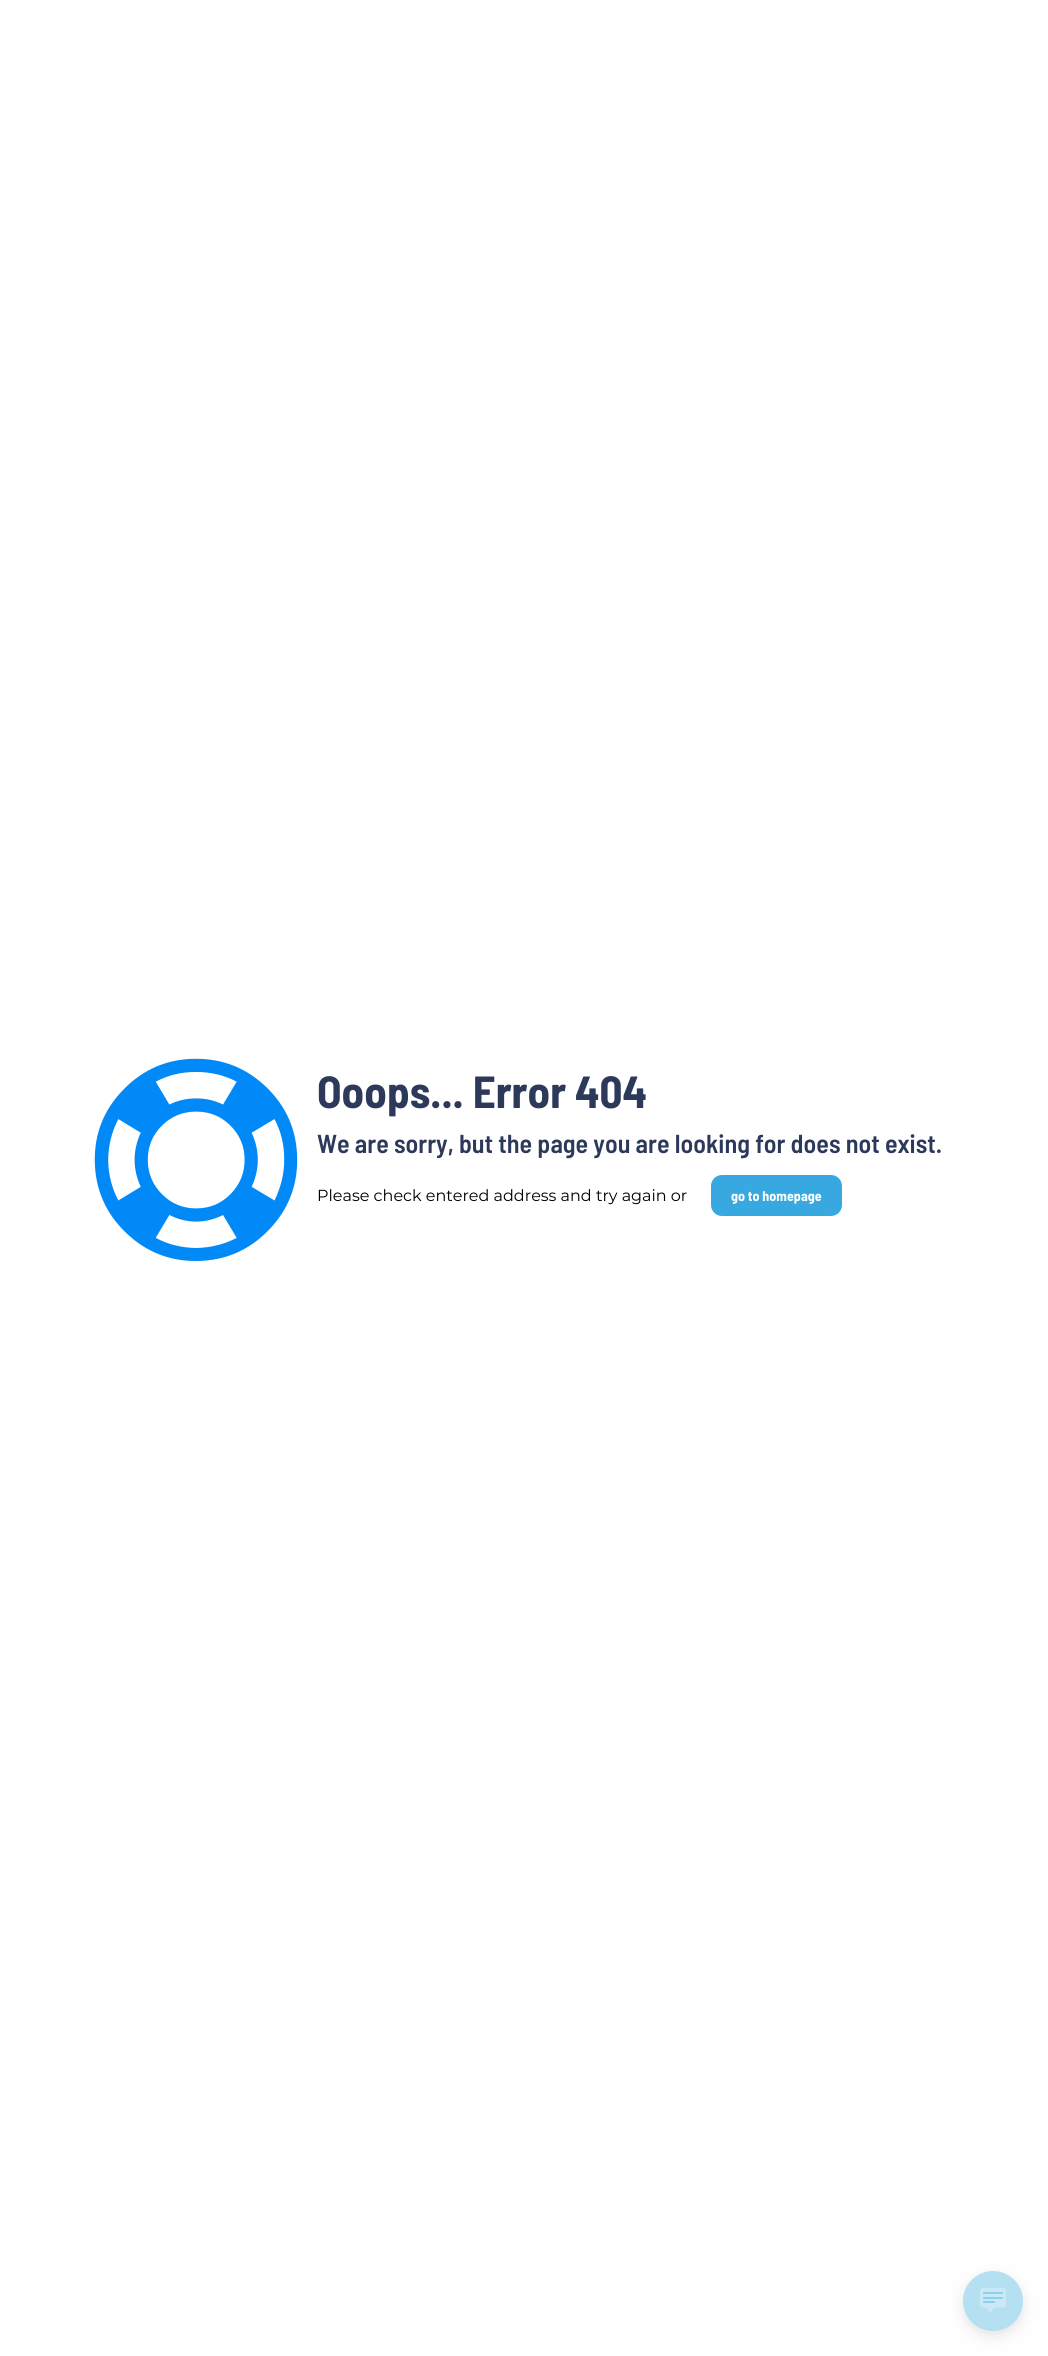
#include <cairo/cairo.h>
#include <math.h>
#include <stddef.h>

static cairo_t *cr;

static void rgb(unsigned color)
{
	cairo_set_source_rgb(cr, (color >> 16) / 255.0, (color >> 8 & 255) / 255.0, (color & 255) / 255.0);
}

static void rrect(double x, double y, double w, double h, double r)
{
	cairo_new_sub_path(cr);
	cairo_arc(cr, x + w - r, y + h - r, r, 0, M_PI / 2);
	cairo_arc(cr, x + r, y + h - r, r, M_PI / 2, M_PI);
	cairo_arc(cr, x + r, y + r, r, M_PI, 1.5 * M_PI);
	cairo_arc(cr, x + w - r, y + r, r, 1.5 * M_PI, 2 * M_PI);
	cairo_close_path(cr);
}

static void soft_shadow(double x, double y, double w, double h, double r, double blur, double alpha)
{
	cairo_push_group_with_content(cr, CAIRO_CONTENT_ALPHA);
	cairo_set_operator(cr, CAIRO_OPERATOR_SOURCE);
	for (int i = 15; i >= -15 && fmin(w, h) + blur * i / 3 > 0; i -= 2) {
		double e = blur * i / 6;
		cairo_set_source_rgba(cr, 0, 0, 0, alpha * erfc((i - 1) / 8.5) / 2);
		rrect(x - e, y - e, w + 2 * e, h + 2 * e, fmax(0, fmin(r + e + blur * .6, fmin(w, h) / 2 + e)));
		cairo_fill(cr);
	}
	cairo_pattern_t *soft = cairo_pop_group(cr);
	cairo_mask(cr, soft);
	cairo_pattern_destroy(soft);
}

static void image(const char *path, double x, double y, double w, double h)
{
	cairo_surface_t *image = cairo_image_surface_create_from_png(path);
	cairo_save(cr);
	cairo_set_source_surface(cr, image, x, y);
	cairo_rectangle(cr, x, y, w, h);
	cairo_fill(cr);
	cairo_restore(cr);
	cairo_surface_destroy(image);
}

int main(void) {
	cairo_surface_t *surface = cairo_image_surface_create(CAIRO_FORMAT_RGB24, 1048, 2356);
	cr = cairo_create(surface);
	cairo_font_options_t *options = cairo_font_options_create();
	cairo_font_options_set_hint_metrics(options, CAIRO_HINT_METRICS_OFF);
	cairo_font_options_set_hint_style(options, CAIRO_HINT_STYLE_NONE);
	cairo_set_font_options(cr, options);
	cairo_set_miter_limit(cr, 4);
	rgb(0xffffff);
	cairo_paint(cr);
	image("img/1.png", 94, 1058, 204, 203);
	rgb(0x38a8e0);
	rrect(711, 1175, 131, 41, 11);
	cairo_fill(cr);
	rgb(0xb3b3b3);
	soft_shadow(963, 2277, 60, 60, 30, 10, 0.19);
	soft_shadow(963, 2275, 60, 60, 30, 4, 0.2);
	rgb(0xb4e0f2);
	cairo_arc(cr, 993, 2301, 30, 0, 2 * M_PI);
	cairo_fill(cr);
	image("img/2.png", 980, 2288, 26, 26);
	cairo_select_font_face(cr, "Barlow Semi Condensed", CAIRO_FONT_SLANT_NORMAL, CAIRO_FONT_WEIGHT_BOLD);
	cairo_set_font_size(cr, 45);
	rgb(0x2c395a);
	cairo_move_to(cr, 317, 1108);
	cairo_show_text(cr, "Ooops... Error 404");
	cairo_select_font_face(cr, "Barlow Semi Condensed SemiBold", CAIRO_FONT_SLANT_NORMAL, CAIRO_FONT_WEIGHT_NORMAL);
	cairo_set_font_size(cr, 26);
	cairo_move_to(cr, 317, 1153);
	cairo_show_text(cr, "We are sorry, but the page you are looking for does not exist.");
	cairo_select_font_face(cr, "Montserrat", CAIRO_FONT_SLANT_NORMAL, CAIRO_FONT_WEIGHT_NORMAL);
	cairo_set_font_size(cr, 16);
	rgb(0x000000);
	cairo_move_to(cr, 317, 1201);
	cairo_show_text(cr, "Please check entered address and try again or");
	cairo_select_font_face(cr, "Barlow Semi Condensed", CAIRO_FONT_SLANT_NORMAL, CAIRO_FONT_WEIGHT_BOLD);
	cairo_set_font_size(cr, 14);
	rgb(0xffffff);
	cairo_move_to(cr, 731, 1201);
	cairo_show_text(cr, "go to homepage");
	cairo_surface_write_to_png(surface, "page.png");
	cairo_font_options_destroy(options);
	cairo_destroy(cr);
	cairo_surface_destroy(surface);
	return 0;
}
